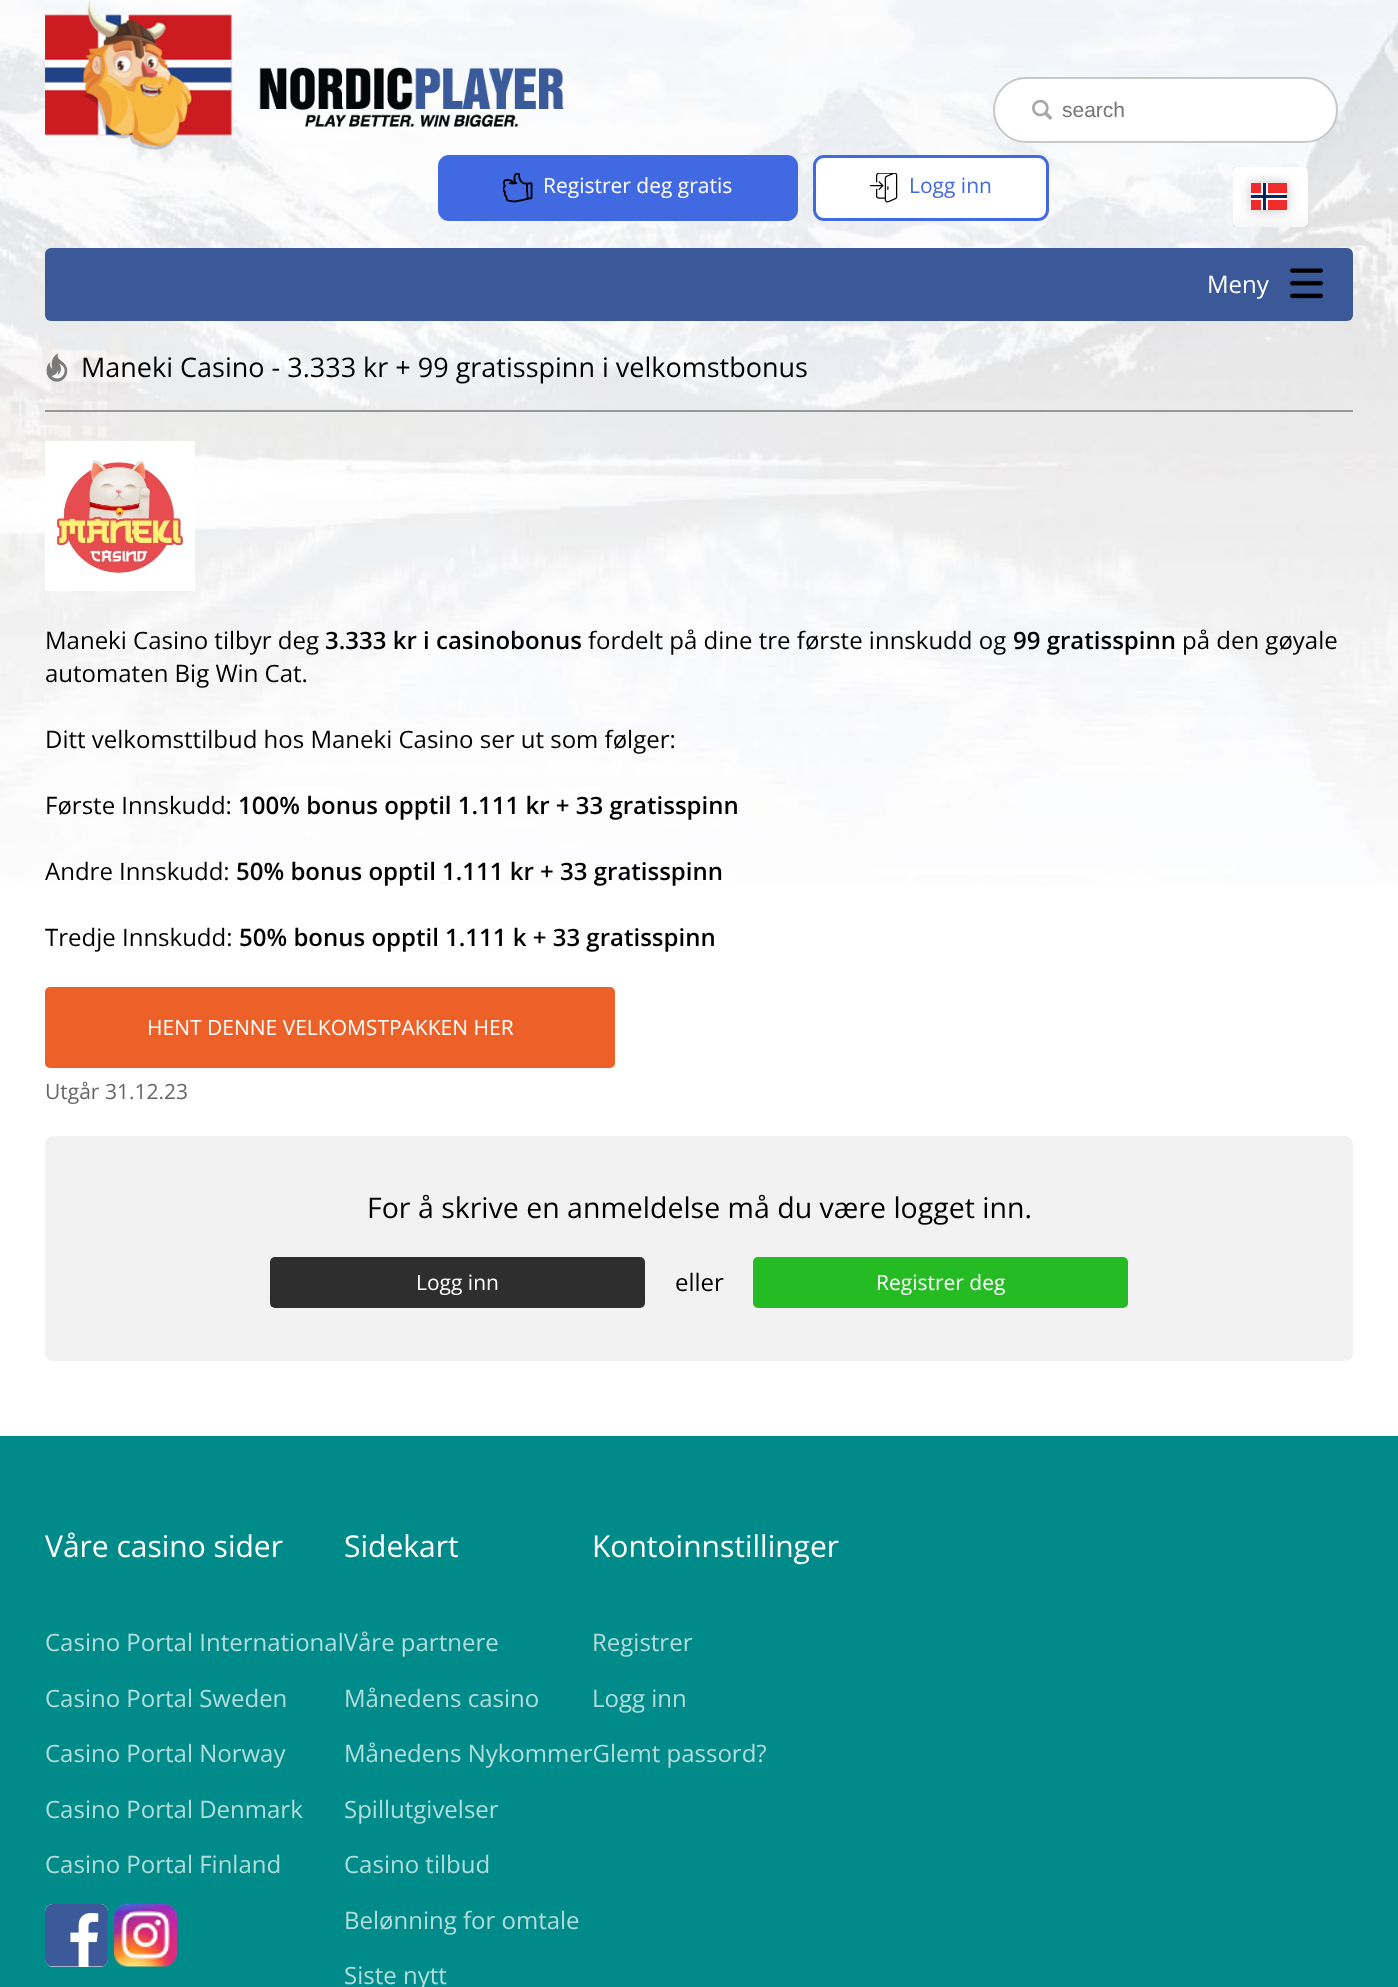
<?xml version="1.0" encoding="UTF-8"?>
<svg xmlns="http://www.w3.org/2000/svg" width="1398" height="1987">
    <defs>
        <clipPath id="clip1"><rect x="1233" y="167" width="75" height="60"/></clipPath>
        <filter id="blur1" x="-50%" y="-200%" width="200%" height="500%"><feGaussianBlur stdDeviation="15"/></filter>
        <filter id="blur2" x="-50%" y="-200%" width="200%" height="500%"><feGaussianBlur stdDeviation="6"/></filter>
    </defs>
    <rect width="100%" height="100%" fill="#FFFFFF"/>
    <image x="0" y="0" width="1398" height="885" href="img_01.png"/>
    <image x="45" y="1" width="519" height="149" href="img_02.png"/>
    <rect x="994" y="78" width="343" height="64" rx="32" fill="#FFFFFF" stroke="#C8C8C8" stroke-width="2"/>
    <image x="1032" y="99" width="21" height="21" href="img_03.png"/>
    <text x="1062" y="117" font-family="Liberation Sans" font-size="21" fill="#757575">search</text>
    <rect x="439.5" y="156.5" width="357" height="63" rx="9.5" fill="#4169E1" stroke="#4169E1" stroke-width="3"/>
    <image x="503" y="173" width="30" height="30" href="img_04.png"/>
    <text x="543" y="193" font-family="Open Sans" font-size="21" fill="#FFFFFF">Registrer deg gratis</text>
    <rect x="814.5" y="156.5" width="233" height="63" rx="9.5" fill="#FFFFFF" stroke="#4169E1" stroke-width="3"/>
    <image x="869" y="173" width="29" height="30" href="img_05.png"/>
    <text x="909" y="193" font-family="Open Sans" font-size="21" fill="#4169E1">Logg inn</text>
    <g clip-path="url(#clip1)">
        <rect x="1233" y="167" width="75" height="60" rx="5" fill="#000000" fill-opacity="0.13" filter="url(#blur1)"/>
    </g>
    <rect x="1233" y="167" width="75" height="60" rx="5" fill="#FFFFFF"/>
    <rect x="1251" y="183" width="36" height="27" fill="#000000" fill-opacity="0.24" filter="url(#blur2)"/>
    <rect x="1251" y="183" width="36" height="27" fill="#EF2B2D"/>
    <rect x="1261" y="183" width="7" height="27" fill="#FFFFFF"/>
    <rect x="1251" y="193" width="36" height="7" fill="#FFFFFF"/>
    <rect x="1263" y="183" width="3" height="27" fill="#002868"/>
    <rect x="1251" y="195" width="36" height="3" fill="#002868"/>
    <rect x="45" y="248" width="1308" height="73" rx="6" fill="#3B5998"/>
    <image x="1290" y="268" width="33" height="31" href="img_06.png"/>
    <rect x="45" y="410" width="1308" height="2" fill="#979797"/>
    <g clip-path="url(#clip1)">
        <rect x="1233" y="234" width="75" height="233" rx="5" fill="#000000" fill-opacity="0.13" filter="url(#blur1)"/>
    </g>
    <text x="1207" y="293" font-family="Open Sans" font-size="24" fill="#FFFFFF">Meny</text>
    <image x="46" y="353" width="22" height="29" href="img_07.png"/>
    <text x="81" y="377" font-family="Open Sans" font-size="27" fill="#000000">Maneki Casino - 3.333 kr + 99 gratisspinn i velkomstbonus</text>
    <rect x="45" y="441" width="150" height="150" fill="#FFFFFF"/>
    <image x="54" y="459" width="131" height="118" href="img_08.png"/>
    <text x="45" y="649" font-family="Open Sans" font-size="24" fill="#000000">Maneki Casino tilbyr deg</text>
    <text x="325" y="649" font-family="Open Sans" font-size="24" font-weight="600" fill="#000000">3.333 kr i casinobonus</text>
    <text x="588" y="649" font-family="Open Sans" font-size="24" fill="#000000">fordelt på dine tre første innskudd og</text>
    <text x="1013" y="649" font-family="Open Sans" font-size="24" font-weight="600" fill="#000000">99 gratisspinn</text>
    <text x="1182" y="649" font-family="Open Sans" font-size="24" fill="#000000">på den gøyale</text>
    <text x="45" y="682" font-family="Open Sans" font-size="24" fill="#000000">automaten Big Win Cat.</text>
    <text x="45" y="748" font-family="Open Sans" font-size="24" fill="#000000">Ditt velkomsttilbud hos Maneki Casino ser ut som følger:</text>
    <text x="45" y="814" font-family="Open Sans" font-size="24" fill="#000000">Første Innskudd:</text>
    <text x="238" y="814" font-family="Open Sans" font-size="24" font-weight="600" fill="#000000">100% bonus opptil 1.111 kr + 33 gratisspinn</text>
    <text x="45" y="880" font-family="Open Sans" font-size="24" fill="#000000">Andre Innskudd:</text>
    <text x="236" y="880" font-family="Open Sans" font-size="24" font-weight="600" fill="#000000">50% bonus opptil 1.111 kr + 33 gratisspinn</text>
    <text x="45" y="946" font-family="Open Sans" font-size="24" fill="#000000">Tredje Innskudd:</text>
    <text x="239" y="946" font-family="Open Sans" font-size="24" font-weight="600" fill="#000000">50% bonus opptil 1.111 k + 33 gratisspinn</text>
    <rect x="45" y="987" width="570" height="81" rx="5" fill="#ED6128"/>
    <text x="147" y="1035" font-family="Open Sans" font-size="21" fill="#FFFFFF">HENT DENNE VELKOMSTPAKKEN HER</text>
    <text x="45" y="1099" font-family="Open Sans" font-size="21" fill="#676767">Utgår 31.12.23</text>
    <rect x="45" y="1136" width="1308" height="225" rx="8" fill="#F2F2F2"/>
    <text x="367" y="1218" font-family="Open Sans" font-size="28.5" fill="#000000">For å skrive en anmeldelse må du være logget inn.</text>
    <rect x="270" y="1257" width="375" height="51" rx="5" fill="#2E2E2E"/>
    <text x="416" y="1290" font-family="Open Sans" font-size="21" fill="#FFFFFF">Logg inn</text>
    <text x="675" y="1291" font-family="Open Sans" font-size="24" fill="#000000">eller</text>
    <rect x="753" y="1257" width="375" height="51" rx="5" fill="#25BC23"/>
    <text x="876" y="1290" font-family="Open Sans" font-size="21" fill="#FFFFFF">Registrer deg</text>
    <rect x="0" y="1436" width="1398" height="551" fill="#008B8B"/>
    <text x="45" y="1557" font-family="Open Sans" font-size="30" fill="#FFFFFF">Våre casino sider</text>
    <text x="45" y="1651" font-family="Open Sans" font-size="24" fill="#B3DCDC">Casino Portal InternationalVåre partnere</text>
    <text x="45" y="1707" font-family="Open Sans" font-size="24" fill="#B3DCDC">Casino Portal Sweden</text>
    <text x="45" y="1762" font-family="Open Sans" font-size="24" fill="#B3DCDC">Casino Portal Norway</text>
    <text x="45" y="1818" font-family="Open Sans" font-size="24" fill="#B3DCDC">Casino Portal Denmark</text>
    <text x="45" y="1873" font-family="Open Sans" font-size="24" fill="#B3DCDC">Casino Portal Finland</text>
    <rect x="45" y="1904" width="63" height="63" rx="8" fill="#FFFFFF"/>
    <image x="114" y="1903" width="63" height="64" href="img_09.png"/>
    <image x="45" y="1904" width="63" height="63" href="img_10.png"/>
    <text x="344" y="1557" font-family="Open Sans" font-size="30" fill="#FFFFFF">Sidekart</text>
    <text x="344" y="1707" font-family="Open Sans" font-size="24" fill="#B3DCDC">Månedens casino</text>
    <text x="344" y="1762" font-family="Open Sans" font-size="24" fill="#B3DCDC">Månedens NykommerGlemt passord?</text>
    <text x="344" y="1818" font-family="Open Sans" font-size="24" fill="#B3DCDC">Spillutgivelser</text>
    <text x="344" y="1873" font-family="Open Sans" font-size="24" fill="#B3DCDC">Casino tilbud</text>
    <text x="344" y="1929" font-family="Open Sans" font-size="24" fill="#B3DCDC">Belønning for omtale</text>
    <text x="344" y="1984" font-family="Open Sans" font-size="24" fill="#B3DCDC">Siste nytt</text>
    <text x="592" y="1557" font-family="Open Sans" font-size="30" fill="#FFFFFF">Kontoinnstillinger</text>
    <text x="592" y="1651" font-family="Open Sans" font-size="24" fill="#B3DCDC">Registrer</text>
    <text x="592" y="1707" font-family="Open Sans" font-size="24" fill="#B3DCDC">Logg inn</text>
</svg>
